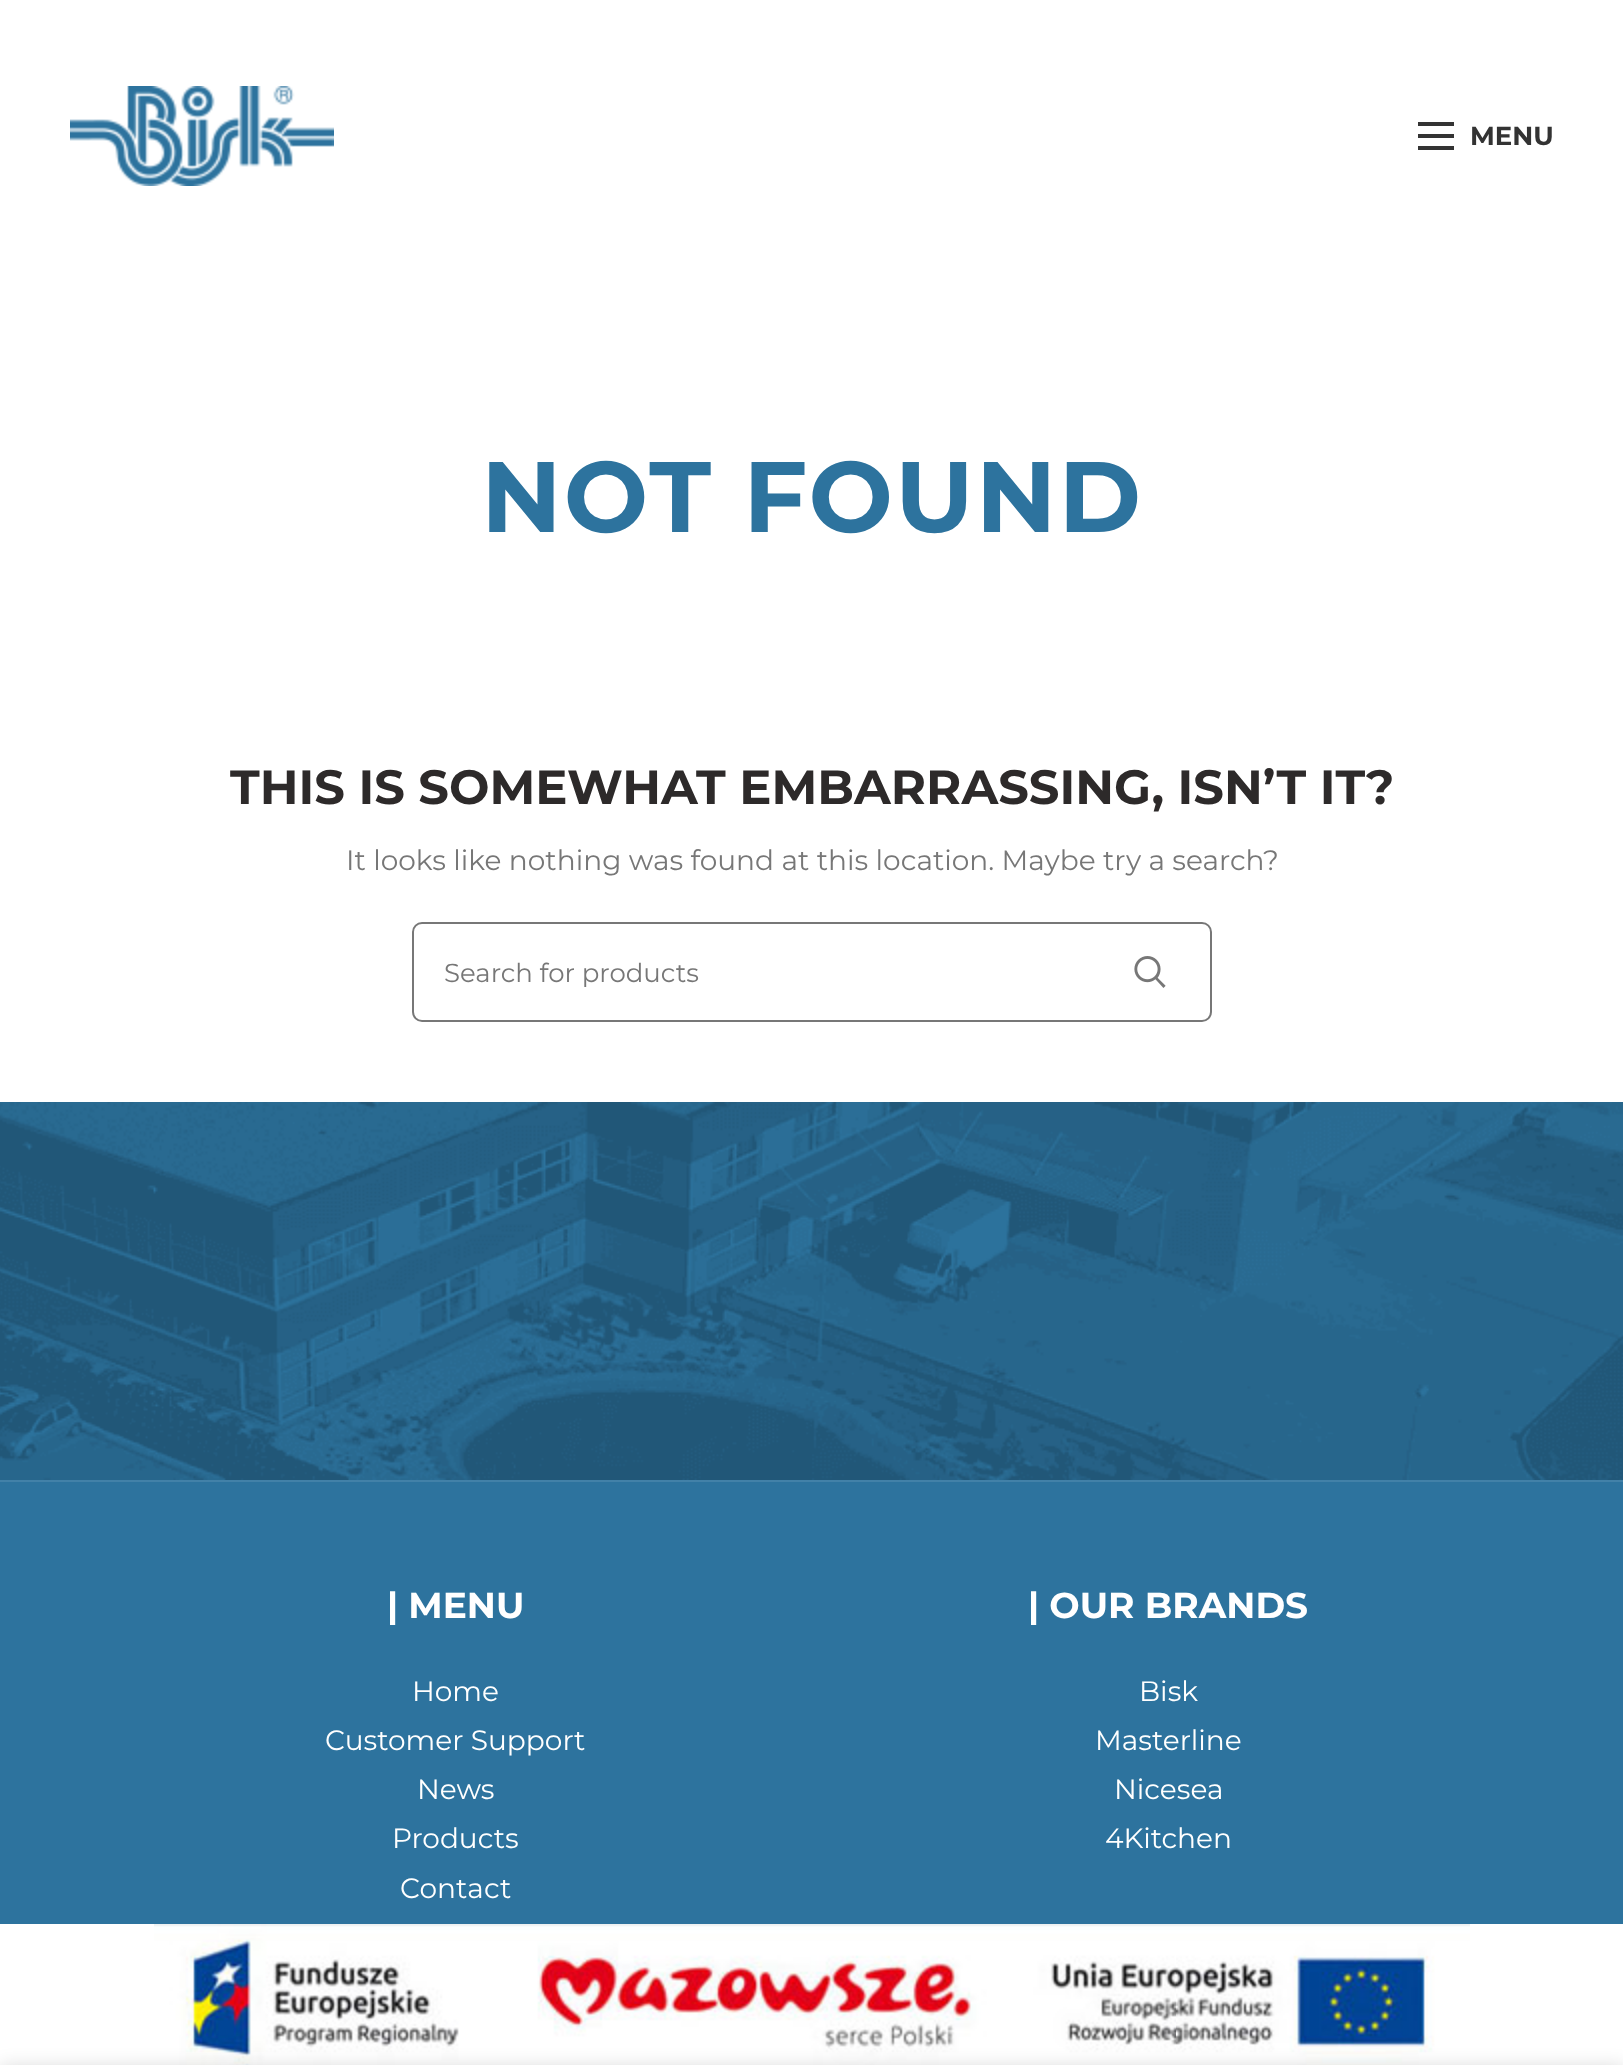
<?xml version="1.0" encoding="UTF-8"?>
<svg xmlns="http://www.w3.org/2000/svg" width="1623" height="2065">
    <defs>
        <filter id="blur1" x="-50%" y="-200%" width="200%" height="500%"><feGaussianBlur stdDeviation="9"/></filter>
    </defs>
    <rect width="100%" height="100%" fill="#FFFFFF"/>
    <image x="70" y="86" width="264" height="100" href="img_01.png"/>
    <rect x="1418" y="134" width="36" height="4" fill="#333333"/>
    <rect x="1418" y="122" width="36" height="4" fill="#333333"/>
    <rect x="1418" y="146" width="36" height="4" fill="#333333"/>
    <text x="1470" y="145" font-family="Montserrat" font-size="26" font-weight="700" fill="#333333">MENU</text>
    <text x="481" y="532" font-family="Montserrat" font-size="100" font-weight="700" letter-spacing="2" fill="#2D739E">NOT FOUND</text>
    <text x="230" y="804" font-family="Montserrat" font-size="48" font-weight="700" fill="#2D2A2A">THIS IS SOMEWHAT EMBARRASSING, ISN’T IT?</text>
    <text x="346" y="870" font-family="Montserrat" font-size="28" fill="#777777">It looks like nothing was found at this location. Maybe try a search?</text>
    <rect x="413" y="923" width="798" height="98" rx="9" fill="none" stroke="#777777" stroke-width="2"/>
    <text x="444" y="982" font-family="Montserrat" font-size="26" fill="#777777">Search for products</text>
    <image x="1134" y="956" width="32" height="32" href="img_02.png"/>
    <rect x="0" y="1102" width="1623" height="822" fill="#2D739E"/>
    <rect x="0" y="1480" width="1623" height="2" fill="#4281A8"/>
    <image x="0" y="1102" width="1623" height="378" href="img_03.png"/>
    <text x="387" y="1618" font-family="Montserrat" font-size="36" font-weight="700" fill="#FFFFFF">| MENU</text>
    <text x="412" y="1701" font-family="Montserrat" font-size="28" fill="#FFFFFF">Home</text>
    <text x="325" y="1750" font-family="Montserrat" font-size="28" fill="#FFFFFF">Customer Support</text>
    <text x="417" y="1799" font-family="Montserrat" font-size="28" fill="#FFFFFF">News</text>
    <text x="392" y="1848" font-family="Montserrat" font-size="28" fill="#FFFFFF">Products</text>
    <text x="400" y="1898" font-family="Montserrat" font-size="28" fill="#FFFFFF">Contact</text>
    <text x="1028" y="1618" font-family="Montserrat" font-size="36" font-weight="700" fill="#FFFFFF">| OUR BRANDS</text>
    <text x="1139" y="1701" font-family="Montserrat" font-size="28" fill="#FFFFFF">Bisk</text>
    <text x="1095" y="1750" font-family="Montserrat" font-size="28" fill="#FFFFFF">Masterline</text>
    <text x="1114" y="1799" font-family="Montserrat" font-size="28" fill="#FFFFFF">Nicesea</text>
    <text x="1105" y="1848" font-family="Montserrat" font-size="28" fill="#FFFFFF">4Kitchen</text>
    <image x="154" y="1924" width="1316" height="141" href="img_04.png"/>
    <rect x="0" y="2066" width="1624" height="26" fill="#000000" fill-opacity="0.14" filter="url(#blur1)"/>
</svg>
